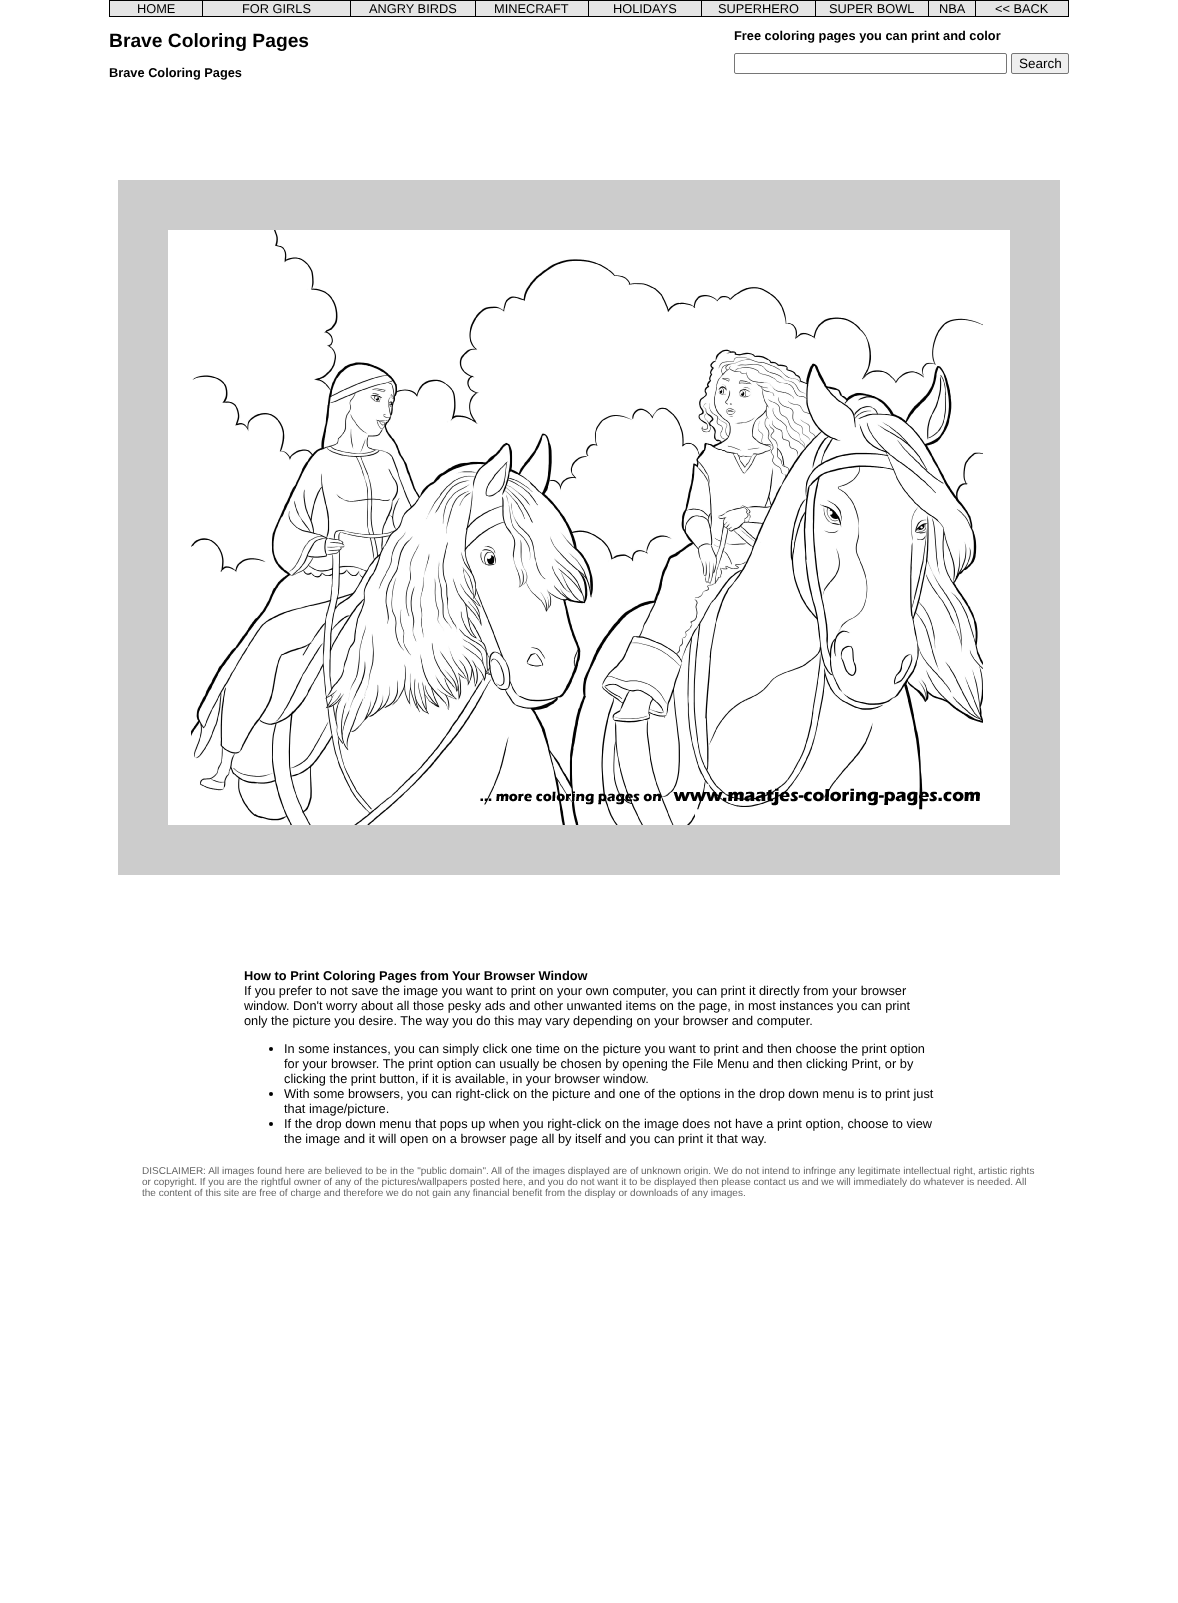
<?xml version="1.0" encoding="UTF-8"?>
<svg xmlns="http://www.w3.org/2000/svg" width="1178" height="1603">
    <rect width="100%" height="100%" fill="#FFFFFF"/>
    <rect x="109.5" y="0.5" width="959" height="16" fill="#E5E5E5" stroke="#000000"/>
    <rect x="202" y="1" width="1" height="15" fill="#000000"/>
    <text x="137" y="13" font-family="Liberation Sans" font-size="12.8" fill="#000000">HOME</text>
    <rect x="350" y="1" width="1" height="15" fill="#000000"/>
    <text x="242" y="13" font-family="Liberation Sans" font-size="12.8" fill="#000000">FOR GIRLS</text>
    <rect x="475" y="1" width="1" height="15" fill="#000000"/>
    <text x="369" y="13" font-family="Liberation Sans" font-size="12.8" fill="#000000">ANGRY BIRDS</text>
    <rect x="588" y="1" width="1" height="15" fill="#000000"/>
    <text x="494" y="13" font-family="Liberation Sans" font-size="12.8" fill="#000000">MINECRAFT</text>
    <rect x="701" y="1" width="1" height="15" fill="#000000"/>
    <text x="613" y="13" font-family="Liberation Sans" font-size="12.8" fill="#000000">HOLIDAYS</text>
    <rect x="815" y="1" width="1" height="15" fill="#000000"/>
    <text x="718" y="13" font-family="Liberation Sans" font-size="12.8" fill="#000000">SUPERHERO</text>
    <rect x="928" y="1" width="1" height="15" fill="#000000"/>
    <text x="829" y="13" font-family="Liberation Sans" font-size="12.8" fill="#000000">SUPER BOWL</text>
    <rect x="975" y="1" width="1" height="15" fill="#000000"/>
    <text x="939" y="13" font-family="Liberation Sans" font-size="12.8" fill="#000000">NBA</text>
    <text x="995" y="13" font-family="Liberation Sans" font-size="12.8" fill="#000000">&lt;&lt; BACK</text>
    <text x="109" y="47" font-family="Liberation Sans" font-size="19.25" font-weight="700" fill="#000000">Brave Coloring Pages</text>
    <text x="109" y="77" font-family="Liberation Sans" font-size="12.8" font-weight="700" fill="#000000">Brave Coloring Pages</text>
    <text x="734" y="40" font-family="Liberation Sans" font-size="12.8" font-weight="700" fill="#000000">Free coloring pages you can print and color</text>
    <rect x="734.5" y="53.5" width="272" height="20" rx="1.5" fill="none" stroke="#767676"/>
    <rect x="1011.5" y="53.5" width="57" height="20" rx="1.5" fill="#EFEFEF" stroke="#767676"/>
    <text x="1019" y="68" font-family="Liberation Sans" font-size="13.5" fill="#000000">Search</text>
    <rect x="118" y="180" width="942" height="695" fill="#CCCCCC"/>
    <image x="168" y="230" width="842" height="595" href="img_01.png"/>
    <text x="244" y="980" font-family="Liberation Sans" font-size="12.8" font-weight="700" fill="#000000">How to Print Coloring Pages from Your Browser Window</text>
    <text font-family="Liberation Sans" font-size="12.8" fill="#000000">
        <tspan x="244" y="995">If you prefer to not save the image you want to print on your own computer, you can print it directly from your browser</tspan>
        <tspan x="244" y="1010">window. Don't worry about all those pesky ads and other unwanted items on the page, in most instances you can print</tspan>
        <tspan x="244" y="1025">only the picture you desire. The way you do this may vary depending on your browser and computer.</tspan>
    </text>
    <circle cx="271" cy="1049" r="2" fill="#000000"/>
    <text font-family="Liberation Sans" font-size="12.8" fill="#000000">
        <tspan x="284" y="1053">In some instances, you can simply click one time on the picture you want to print and then choose the print option</tspan>
        <tspan x="284" y="1068">for your browser. The print option can usually be chosen by opening the File Menu and then clicking Print, or by</tspan>
        <tspan x="284" y="1083">clicking the print button, if it is available, in your browser window.</tspan>
    </text>
    <circle cx="271" cy="1094" r="2" fill="#000000"/>
    <text font-family="Liberation Sans" font-size="12.8" fill="#000000">
        <tspan x="284" y="1098">With some browsers, you can right-click on the picture and one of the options in the drop down menu is to print just</tspan>
        <tspan x="284" y="1113">that image/picture.</tspan>
    </text>
    <circle cx="271" cy="1124" r="2" fill="#000000"/>
    <text font-family="Liberation Sans" font-size="12.8" fill="#000000">
        <tspan x="284" y="1128">If the drop down menu that pops up when you right-click on the image does not have a print option, choose to view</tspan>
        <tspan x="284" y="1143">the image and it will open on a browser page all by itself and you can print it that way.</tspan>
    </text>
    <text font-family="Liberation Sans" font-size="10" fill="#666666">
        <tspan x="142" y="1174">DISCLAIMER: All images found here are believed to be in the "public domain". All of the images displayed are of unknown origin. We do not intend to infringe any legitimate intellectual right, artistic rights</tspan>
        <tspan x="142" y="1185">or copyright. If you are the rightful owner of any of the pictures/wallpapers posted here, and you do not want it to be displayed then please contact us and we will immediately do whatever is needed. All</tspan>
        <tspan x="142" y="1196">the content of this site are free of charge and therefore we do not gain any financial benefit from the display or downloads of any images.</tspan>
    </text>
</svg>
